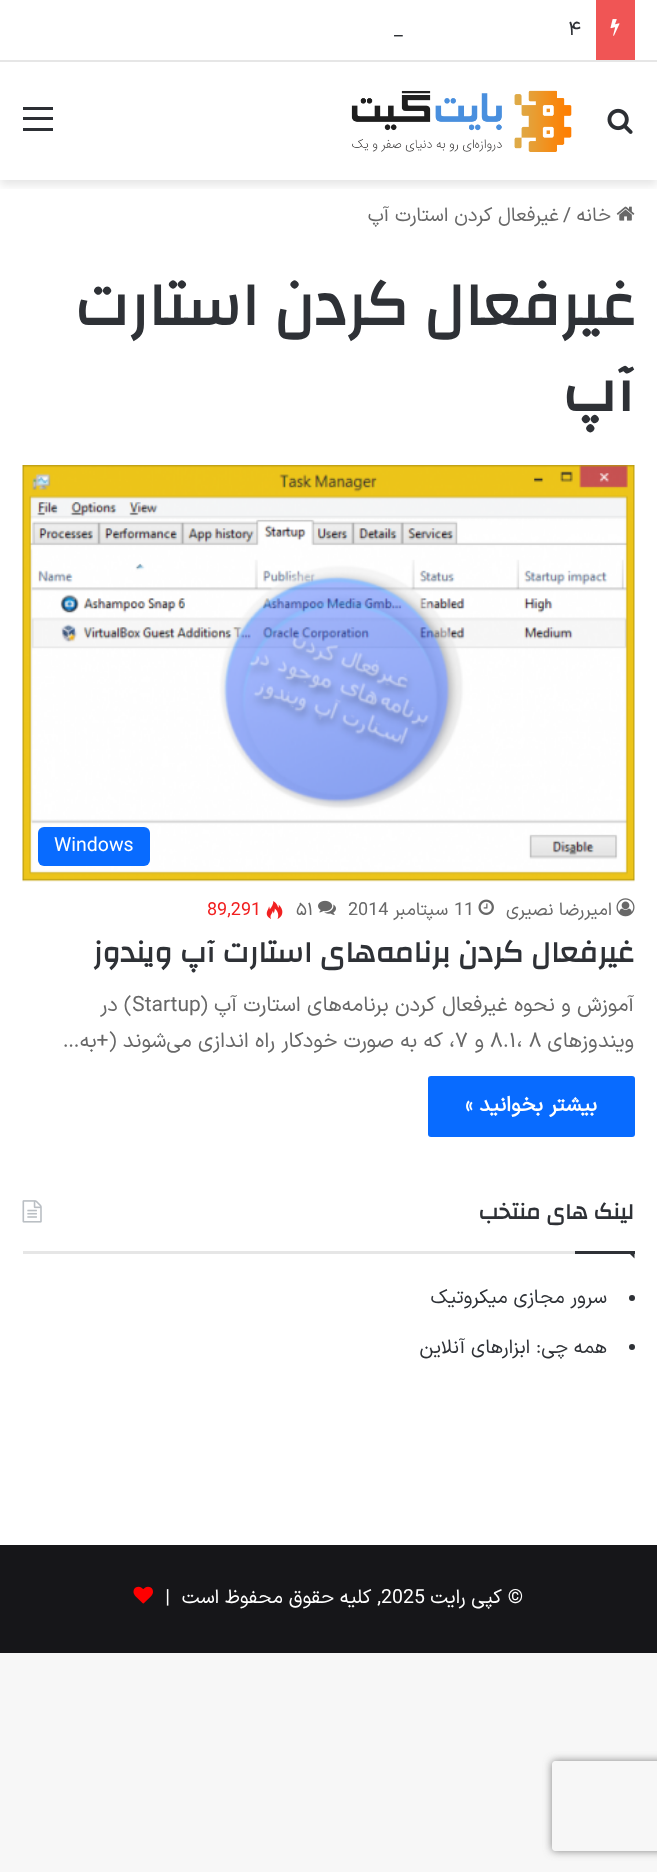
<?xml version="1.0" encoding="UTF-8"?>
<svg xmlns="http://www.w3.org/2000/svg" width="657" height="1872">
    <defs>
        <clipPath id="clip1"><rect x="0" y="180" width="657" height="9"/></clipPath>
        <filter id="blur1" x="-50%" y="-200%" width="200%" height="500%"><feGaussianBlur stdDeviation="5"/></filter>
        <clipPath id="clip2"><path d="M 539 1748 H 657 V 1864 H 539 Z M 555 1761 H 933 C 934.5 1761 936 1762.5 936 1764 V 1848 C 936 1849.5 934.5 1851 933 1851 H 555 C 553.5 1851 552 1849.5 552 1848 V 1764 C 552 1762.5 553.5 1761 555 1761 Z" clip-rule="evenodd"/></clipPath>
        <filter id="blur2" x="-50%" y="-200%" width="200%" height="500%"><feGaussianBlur stdDeviation="4"/></filter>
    </defs>
    <rect width="100%" height="100%" fill="#F7F7F7"/>
    <rect x="0" y="62" width="657" height="1483" fill="#FFFFFF"/>
    <g clip-path="url(#clip1)">
        <rect x="0" y="66" width="657" height="119" fill="#000000" fill-opacity="0.1" filter="url(#blur1)"/>
    </g>
    <rect x="0" y="0" width="657" height="60" fill="#FFFFFF"/>
    <rect x="0" y="60" width="657" height="2" fill="#E6E6E6"/>
    <rect x="596" y="0" width="39" height="60" fill="#F05555"/>
    <image x="610" y="19" width="10" height="17" href="img_01.png"/>
    <text x="568" y="35" font-family="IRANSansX" font-size="19.5" fill="#2E3136">۴</text>
    <text x="394" y="35" font-family="IRANSansX" font-size="19.5" fill="#2E3136">_</text>
    <image x="607" y="108" width="26" height="26" href="img_02.png"/>
    <image x="351" y="90" width="221" height="62" href="img_03.png"/>
    <rect x="23" y="117" width="30" height="3" fill="#2C2F34"/>
    <rect x="23" y="107" width="30" height="3" fill="#2C2F34"/>
    <rect x="23" y="128" width="30" height="3" fill="#2C2F34"/>
    <image x="616" y="206" width="19" height="15" href="img_04.png"/>
    <text x="611" y="221" font-family="IRANSansX" font-size="19.5" direction="rtl" fill="#686868">خانه</text>
    <text x="563" y="221" font-family="IRANSansX" font-size="19.5" fill="#686868">/</text>
    <text x="559" y="221" font-family="IRANSansX" font-size="19.5" direction="rtl" fill="#686868">غیرفعال کردن استارت آپ</text>
    <text x="635" y="325" font-family="Changa" font-size="61.5" font-weight="700" direction="rtl" fill="#2E3136">غیرفعال کردن استارت</text>
    <text x="634" y="411" font-family="Changa" font-size="61.5" font-weight="700" direction="rtl" fill="#2E3136">آپ</text>
    <image x="22" y="465" width="613" height="417" href="img_05.png"/>
    <rect x="38" y="827" width="112" height="39" rx="6" fill="#086BFF"/>
    <text x="54" y="851" font-family="IRANSansX" font-size="19.5" fill="#FFFFFF">Windows</text>
    <image x="616" y="898" width="19" height="19" href="img_06.png"/>
    <text x="612" y="915" font-family="IRANSansX" font-size="18" direction="rtl" fill="#686868">امیررضا نصیری</text>
    <image x="478" y="899" width="16" height="16" href="img_07.png"/>
    <text x="454" y="915" font-family="IRANSansX" font-size="18" fill="#686868">11</text>
    <text x="448" y="915" font-family="IRANSansX" font-size="18" direction="rtl" fill="#686868">سپتامبر</text>
    <text x="348" y="915" font-family="IRANSansX" font-size="18" fill="#686868">2014</text>
    <image x="318" y="900" width="18" height="15" href="img_08.png"/>
    <text x="296" y="915" font-family="IRANSansX" font-size="18" fill="#686868">۵۱</text>
    <image x="266" y="901" width="17" height="18" href="img_09.png"/>
    <text x="207" y="915" font-family="IRANSansX" font-size="18" fill="#F12020">89,291</text>
    <text x="634" y="962" font-family="Changa" font-size="30" font-weight="700" direction="rtl" fill="#2E3136">غیرفعال کردن برنامه‌های استارت آپ ویندوز</text>
    <text x="634" y="1011" font-family="IRANSansX" font-size="21" direction="rtl" fill="#686868">آموزش و نحوه غیرفعال کردن برنامه‌های استارت آپ (</text>
    <text x="132" y="1011" font-family="IRANSansX" font-size="21" fill="#686868">Startup</text>
    <text x="132" y="1011" font-family="IRANSansX" font-size="21" direction="rtl" fill="#686868">) در</text>
    <text x="634" y="1047" font-family="IRANSansX" font-size="21" direction="rtl" fill="#686868">ویندوزهای</text>
    <text x="490" y="1047" font-family="IRANSansX" font-size="21" fill="#686868">۸.۱، ۸</text>
    <text x="484" y="1047" font-family="IRANSansX" font-size="21" direction="rtl" fill="#686868">و</text>
    <text x="455" y="1047" font-family="IRANSansX" font-size="21" fill="#686868">۷</text>
    <text x="455" y="1047" font-family="IRANSansX" font-size="21" direction="rtl" fill="#686868">، که به صورت خودکار راه اندازی می‌شوند (+به…</text>
    <rect x="428" y="1076" width="207" height="61" rx="3" fill="#086BFF"/>
    <text x="597" y="1111" font-family="IRANSansX" font-size="21" font-weight="700" direction="rtl" fill="#FFFFFF">بیشتر بخوانید »</text>
    <rect x="23" y="1251" width="552" height="3" fill="#E6E6E6"/>
    <text x="634" y="1219" font-family="Changa" font-size="22.5" font-weight="700" direction="rtl" fill="#2E3136">لینک های منتخب</text>
    <image x="22" y="1200" width="20" height="23" href="img_10.png"/>
    <path d="M 627 1251 H 634.5 V 1258.5 Z" fill="#2E3136"/>
    <rect x="575" y="1251" width="60" height="3" fill="#2E3136"/>
    <circle cx="632" cy="1298" r="3" fill="#2E3136"/>
    <text x="607" y="1303" font-family="IRANSansX" font-size="19.5" direction="rtl" fill="#2E3136">سرور مجازی میکروتیک</text>
    <circle cx="632" cy="1347" r="3" fill="#2E3136"/>
    <text x="607" y="1353" font-family="IRANSansX" font-size="19.5" direction="rtl" fill="#2E3136">همه چی: ابزارهای آنلاین</text>
    <rect x="0" y="1545" width="657" height="108" fill="#161619"/>
    <text x="523" y="1603" font-family="IRANSansX" font-size="19.5" direction="rtl" fill="#FFFFFF">© کپی رایت</text>
    <text x="381" y="1603" font-family="IRANSansX" font-size="19.5" fill="#FFFFFF">2025</text>
    <text x="381" y="1603" font-family="IRANSansX" font-size="19.5" direction="rtl" fill="#FFFFFF" xml:space="preserve">, کلیه حقوق محفوظ است  |</text>
    <image x="133" y="1586" width="20" height="18" href="img_11.png"/>
    <g clip-path="url(#clip2)">
        <rect x="552" y="1761" width="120" height="90" rx="3" fill="#808080" filter="url(#blur2)"/>
    </g>
</svg>
